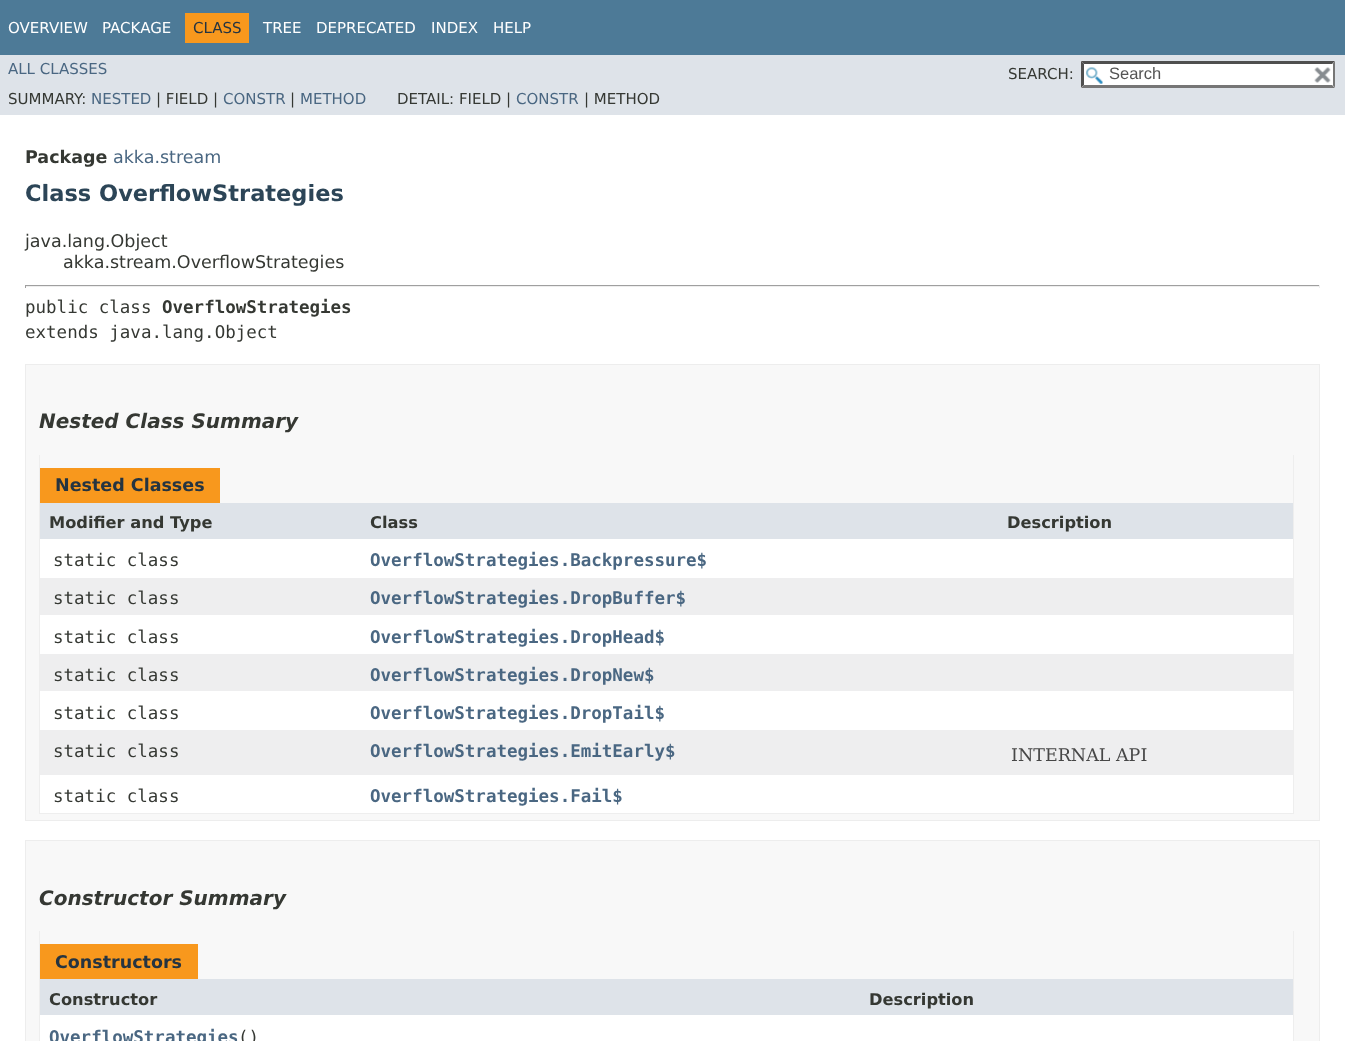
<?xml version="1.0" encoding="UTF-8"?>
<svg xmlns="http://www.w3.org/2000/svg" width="1345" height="1041">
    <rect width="100%" height="100%" fill="#FFFFFF"/>
    <rect x="0" y="0" width="1345" height="55" fill="#4D7A97"/>
    <text x="8" y="33" font-family="DejaVu Sans" font-size="15" fill="#FFFFFF">OVERVIEW</text>
    <text x="102" y="33" font-family="DejaVu Sans" font-size="15" fill="#FFFFFF">PACKAGE</text>
    <rect x="185" y="13" width="64" height="30" fill="#F8981D"/>
    <text x="193" y="33" font-family="DejaVu Sans" font-size="15" fill="#253441">CLASS</text>
    <text x="263" y="33" font-family="DejaVu Sans" font-size="15" fill="#FFFFFF">TREE</text>
    <text x="316" y="33" font-family="DejaVu Sans" font-size="15" fill="#FFFFFF">DEPRECATED</text>
    <text x="431" y="33" font-family="DejaVu Sans" font-size="15" fill="#FFFFFF">INDEX</text>
    <text x="493" y="33" font-family="DejaVu Sans" font-size="15" fill="#FFFFFF">HELP</text>
    <rect x="0" y="55" width="1345" height="60" fill="#DEE3E9"/>
    <text x="8" y="74" font-family="DejaVu Sans" font-size="15" fill="#4A6782">ALL CLASSES</text>
    <text x="1008" y="79" font-family="DejaVu Sans" font-size="15" fill="#353833">SEARCH:</text>
    <rect x="1081" y="61" width="254" height="27" fill="#FFFFFF"/>
    <image x="1086" y="67" width="17" height="17" href="img_01.png"/>
    <path d="M 1081 61 H 1335 L 1332 64 H 1084 Z" fill="#4F4F4F"/>
    <path d="M 1335 61 V 87.5 L 1332.5 85 V 64 Z" fill="#767676"/>
    <path d="M 1335 88 H 1081 L 1084 85 H 1332 Z" fill="#767676"/>
    <path d="M 1081 87.5 V 61 L 1084 64 V 85 Z" fill="#4F4F4F"/>
    <text x="1109" y="79" font-family="Liberation Sans" font-size="16.5" fill="#545454">Search</text>
    <rect x="1332" y="64" width="1" height="21" fill="#FFFFFF"/>
    <image x="1314" y="67" width="17" height="16" href="img_02.png"/>
    <text x="8" y="104" font-family="DejaVu Sans" font-size="15" fill="#353833">SUMMARY:</text>
    <text x="91" y="104" font-family="DejaVu Sans" font-size="15" fill="#4A6782">NESTED</text>
    <text x="156" y="104" font-family="DejaVu Sans" font-size="15" fill="#353833">| FIELD |</text>
    <text x="223" y="104" font-family="DejaVu Sans" font-size="15" fill="#4A6782">CONSTR</text>
    <text x="290" y="104" font-family="DejaVu Sans" font-size="15" fill="#353833">|</text>
    <text x="300" y="104" font-family="DejaVu Sans" font-size="15" fill="#4A6782">METHOD</text>
    <text x="397" y="104" font-family="DejaVu Sans" font-size="15" fill="#353833">DETAIL: FIELD |</text>
    <text x="516" y="104" font-family="DejaVu Sans" font-size="15" fill="#4A6782">CONSTR</text>
    <text x="584" y="104" font-family="DejaVu Sans" font-size="15" fill="#353833">| METHOD</text>
    <text x="25" y="163" font-family="DejaVu Sans" font-size="17.5" font-weight="700" fill="#353833">Package</text>
    <text x="113" y="163" font-family="DejaVu Sans" font-size="17.5" fill="#4A6782">akka.stream</text>
    <text x="25" y="201" font-family="DejaVu Sans" font-size="22.5" font-weight="700" fill="#2C4557">Class OverflowStrategies</text>
    <text x="25" y="247" font-family="DejaVu Sans" font-size="17.5" fill="#353833">java.lang.Object</text>
    <text x="63" y="268" font-family="DejaVu Sans" font-size="17.5" fill="#353833">akka.stream.OverflowStrategies</text>
    <rect x="25" y="285" width="1295" height="1" fill="#9F9F9F"/>
    <rect x="1319" y="285" width="1" height="3" fill="#EEEEEE"/>
    <rect x="25" y="286" width="1295" height="1" fill="#EEEEEE"/>
    <rect x="25" y="285" width="1" height="3" fill="#9F9F9F"/>
    <text x="25" y="313" font-family="DejaVu Sans Mono" font-size="17.5" fill="#353833">public class</text>
    <text x="162" y="313" font-family="DejaVu Sans Mono" font-size="17.5" font-weight="700" fill="#353833">OverflowStrategies</text>
    <text x="25" y="338" font-family="DejaVu Sans Mono" font-size="17.5" fill="#353833">extends java.lang.Object</text>
    <rect x="25.5" y="364.5" width="1294" height="456" fill="#F8F8F8" stroke="#EDEDED"/>
    <text x="39" y="428" font-family="DejaVu Sans" font-size="20" font-weight="700" font-style="italic" fill="#353833">Nested Class Summary</text>
    <rect x="1293" y="455" width="1" height="359" fill="#EEEEEE"/>
    <rect x="39" y="813" width="1255" height="1" fill="#EEEEEE"/>
    <rect x="39" y="455" width="1" height="359" fill="#EEEEEE"/>
    <rect x="40" y="468" width="180" height="35" fill="#F8981D"/>
    <text x="55" y="491" font-family="DejaVu Sans" font-size="17.5" font-weight="700" fill="#253441">Nested Classes</text>
    <rect x="40" y="503" width="1253" height="36" fill="#DEE3E9"/>
    <text x="49" y="528" font-family="DejaVu Sans" font-size="16.25" font-weight="700" fill="#353833">Modifier and Type</text>
    <text x="370" y="528" font-family="DejaVu Sans" font-size="16.25" font-weight="700" fill="#353833">Class</text>
    <text x="1007" y="528" font-family="DejaVu Sans" font-size="16.25" font-weight="700" fill="#353833">Description</text>
    <rect x="40" y="539" width="1253" height="39" fill="#FFFFFF"/>
    <text x="53" y="566" font-family="DejaVu Sans Mono" font-size="17.5" fill="#353833">static class</text>
    <text x="370" y="566" font-family="DejaVu Sans Mono" font-size="17.5" font-weight="700" fill="#4A6782">OverflowStrategies.Backpressure$</text>
    <rect x="40" y="578" width="1253" height="37" fill="#EEEEEF"/>
    <text x="53" y="604" font-family="DejaVu Sans Mono" font-size="17.5" fill="#353833">static class</text>
    <text x="370" y="604" font-family="DejaVu Sans Mono" font-size="17.5" font-weight="700" fill="#4A6782">OverflowStrategies.DropBuffer$</text>
    <rect x="40" y="615" width="1253" height="39" fill="#FFFFFF"/>
    <text x="53" y="643" font-family="DejaVu Sans Mono" font-size="17.5" fill="#353833">static class</text>
    <text x="370" y="643" font-family="DejaVu Sans Mono" font-size="17.5" font-weight="700" fill="#4A6782">OverflowStrategies.DropHead$</text>
    <rect x="40" y="654" width="1253" height="37" fill="#EEEEEF"/>
    <text x="53" y="681" font-family="DejaVu Sans Mono" font-size="17.5" fill="#353833">static class</text>
    <text x="370" y="681" font-family="DejaVu Sans Mono" font-size="17.5" font-weight="700" fill="#4A6782">OverflowStrategies.DropNew$</text>
    <rect x="40" y="691" width="1253" height="39" fill="#FFFFFF"/>
    <text x="53" y="719" font-family="DejaVu Sans Mono" font-size="17.5" fill="#353833">static class</text>
    <text x="370" y="719" font-family="DejaVu Sans Mono" font-size="17.5" font-weight="700" fill="#4A6782">OverflowStrategies.DropTail$</text>
    <rect x="40" y="730" width="1253" height="45" fill="#EEEEEF"/>
    <text x="53" y="757" font-family="DejaVu Sans Mono" font-size="17.5" fill="#353833">static class</text>
    <text x="370" y="757" font-family="DejaVu Sans Mono" font-size="17.5" font-weight="700" fill="#4A6782">OverflowStrategies.EmitEarly$</text>
    <text x="1011" y="761" font-family="DejaVu Serif" font-size="17.5" fill="#474747">INTERNAL API</text>
    <rect x="40" y="775" width="1253" height="38" fill="#FFFFFF"/>
    <text x="53" y="802" font-family="DejaVu Sans Mono" font-size="17.5" fill="#353833">static class</text>
    <text x="370" y="802" font-family="DejaVu Sans Mono" font-size="17.5" font-weight="700" fill="#4A6782">OverflowStrategies.Fail$</text>
    <rect x="25.5" y="840.5" width="1294" height="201" fill="#F8F8F8" stroke="#EDEDED"/>
    <text x="39" y="905" font-family="DejaVu Sans" font-size="20" font-weight="700" font-style="italic" fill="#353833">Constructor Summary</text>
    <rect x="1293" y="931" width="1" height="110" fill="#EEEEEE"/>
    <rect x="39" y="931" width="1" height="110" fill="#EEEEEE"/>
    <rect x="40" y="944" width="158" height="35" fill="#F8981D"/>
    <text x="55" y="968" font-family="DejaVu Sans" font-size="17.5" font-weight="700" fill="#253441">Constructors</text>
    <rect x="40" y="979" width="1253" height="36" fill="#DEE3E9"/>
    <text x="49" y="1005" font-family="DejaVu Sans" font-size="16.25" font-weight="700" fill="#353833">Constructor</text>
    <text x="869" y="1005" font-family="DejaVu Sans" font-size="16.25" font-weight="700" fill="#353833">Description</text>
    <rect x="40" y="1015" width="1253" height="26" fill="#FFFFFF"/>
    <text x="49" y="1043" font-family="DejaVu Sans Mono" font-size="17.5" font-weight="700" fill="#4A6782">OverflowStrategies</text>
    <text x="238" y="1043" font-family="DejaVu Sans Mono" font-size="17.5" fill="#353833">()</text>
</svg>
